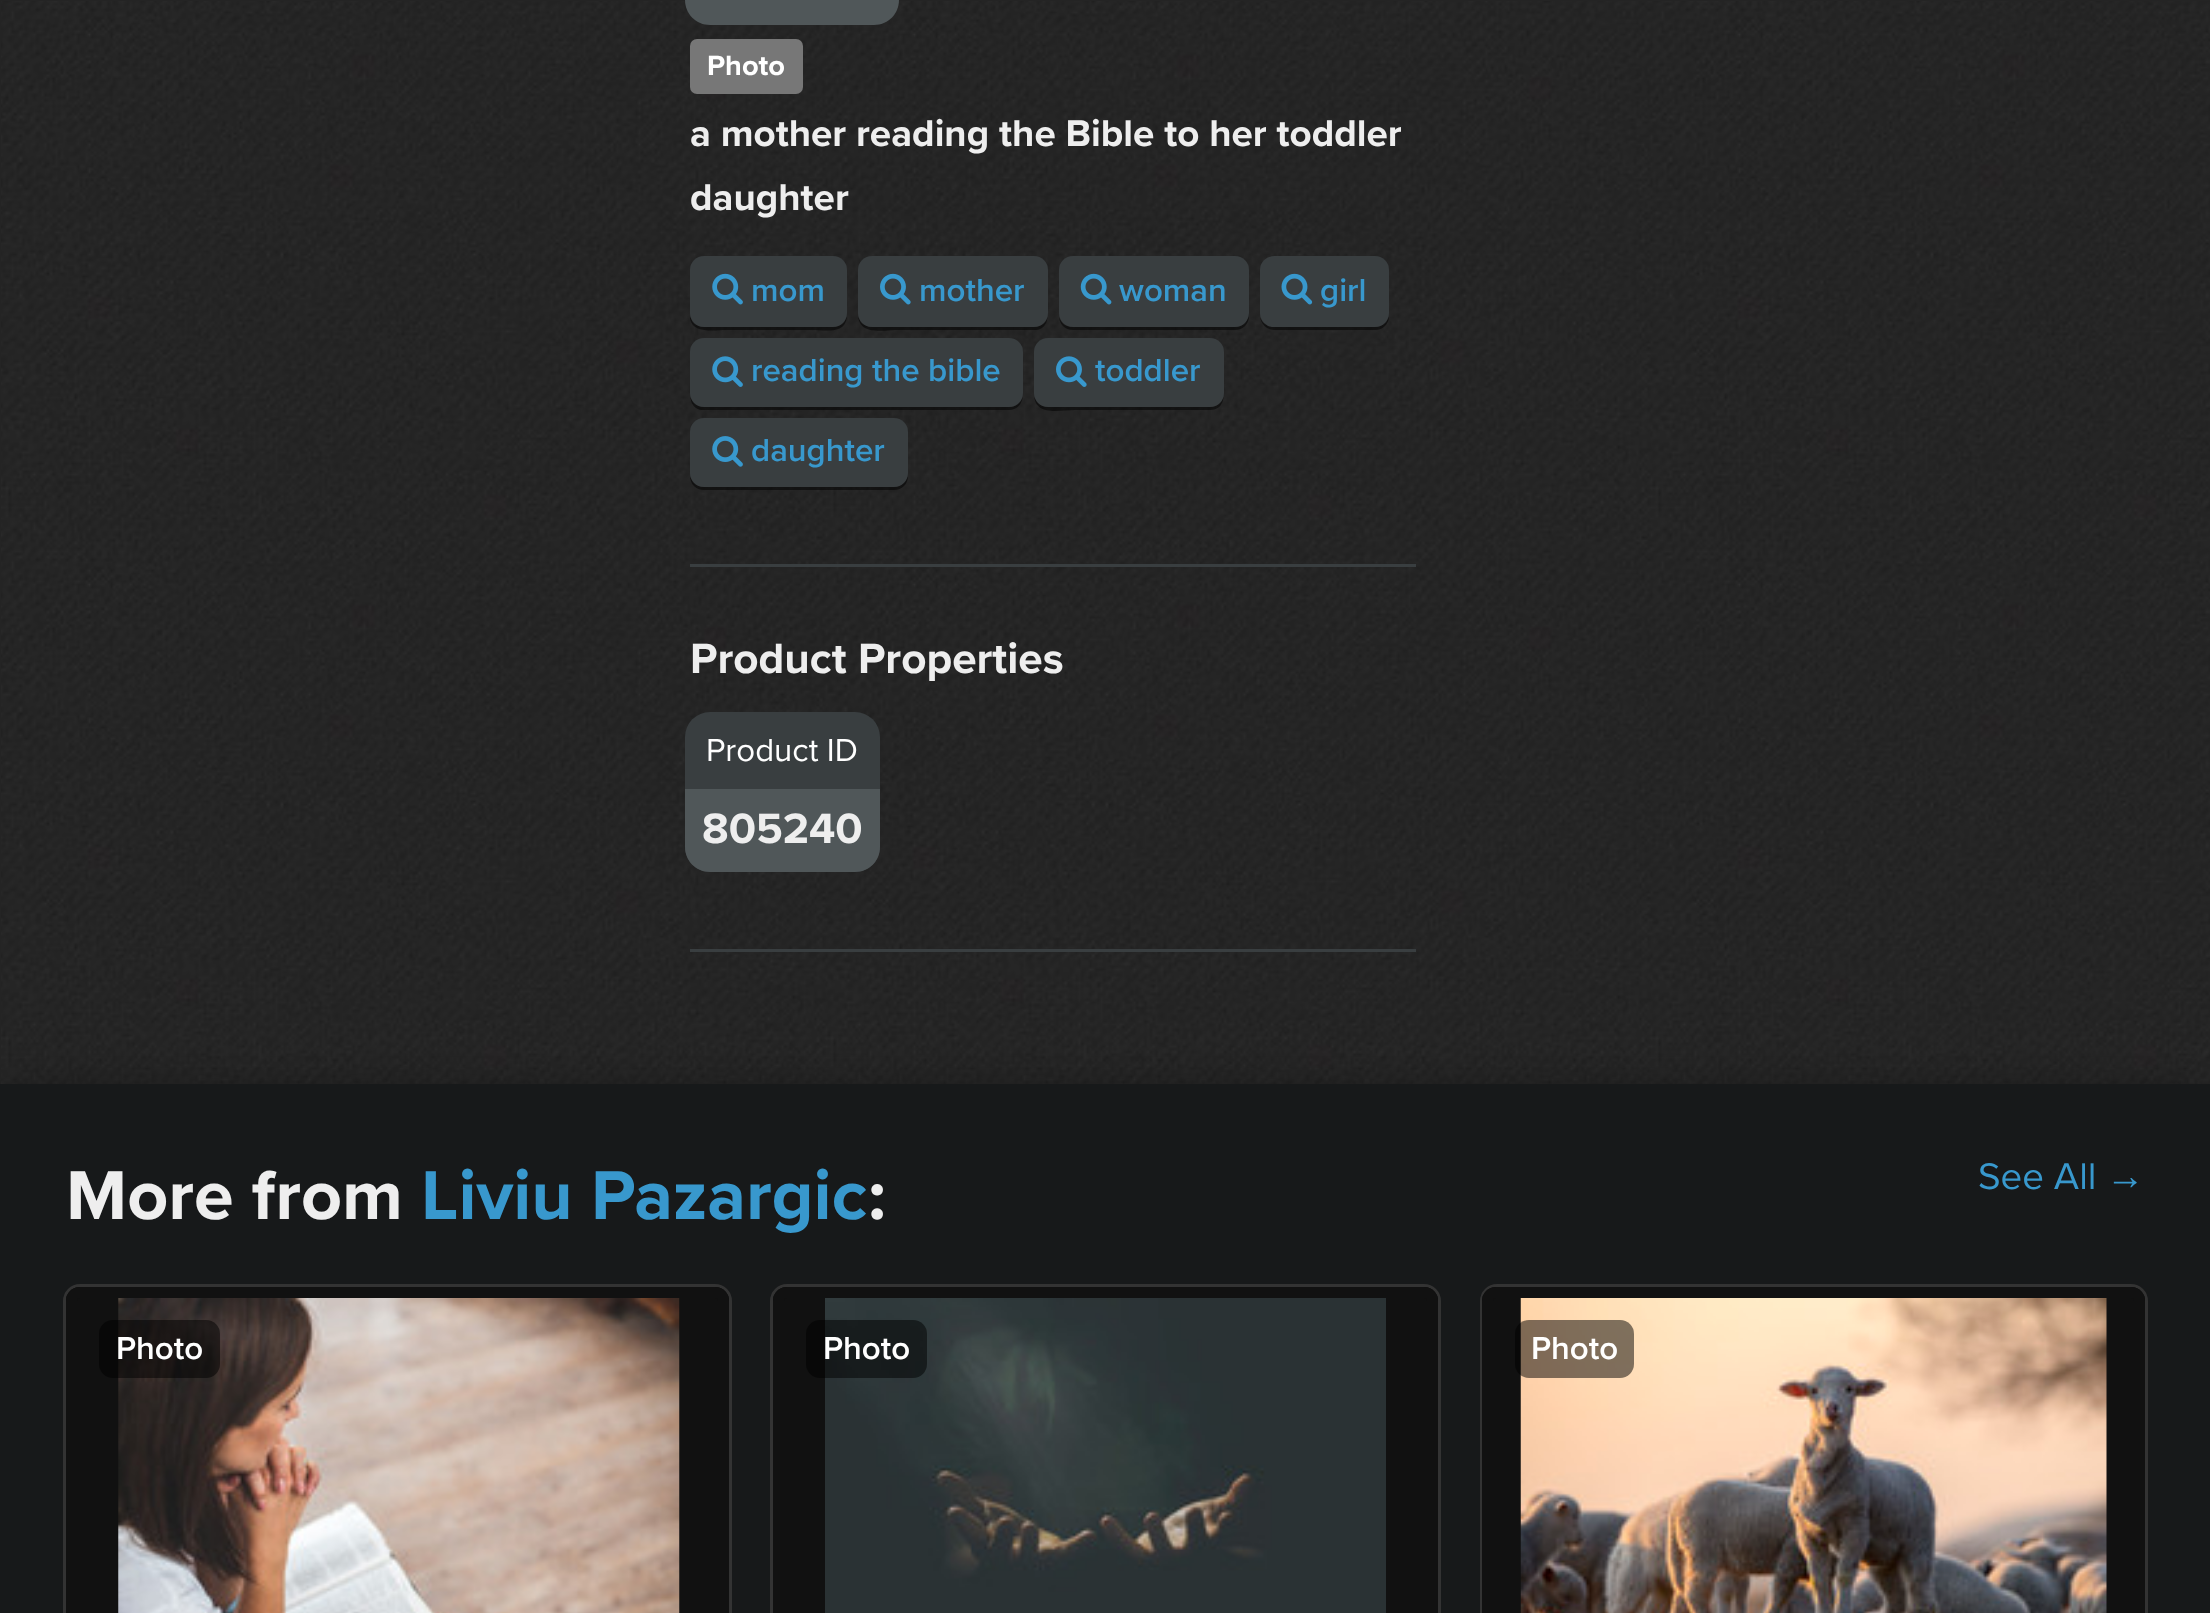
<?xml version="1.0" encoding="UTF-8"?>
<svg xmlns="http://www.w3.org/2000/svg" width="2210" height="1613">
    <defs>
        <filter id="blur1" x="-50%" y="-200%" width="200%" height="500%"><feGaussianBlur stdDeviation="22"/></filter>
    </defs>
    <rect width="100%" height="100%" fill="#242424"/>
    <image x="1" y="1" width="2209" height="1083" href="img_01.png"/>
    <path d="M 685 -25 H 899 V 0 C 899 14 888 25 874 25 H 710 C 696 25 685 14 685 0 Z" fill="#505759"/>
    <rect x="690" y="564" width="726" height="3" fill="#393E40"/>
    <rect x="690" y="39" width="113" height="55" rx="7" fill="#777777"/>
    <text x="707" y="75" font-family="Proxima Nova" font-size="29" font-weight="700" fill="#FFFFFF">Photo</text>
    <text font-family="Proxima Nova" font-size="38.5" font-weight="700" fill="#EEEEEE">
        <tspan x="690" y="146">a mother reading the Bible to her toddler</tspan>
        <tspan x="690" y="210">daughter</tspan>
    </text>
    <path d="M 690 270 V 319 C 693 334 715 330 726 330 H 812 C 827 330 847 335 847 314 C 847 321 841 327 833 327 H 704 C 696 327 690 321 690 314 Z" fill="#000000" fill-opacity="0.5"/>
    <rect x="690" y="256" width="157" height="71" rx="14" fill="#393E40"/>
    <image x="712" y="273" width="31" height="32" href="img_02.png"/>
    <text x="751" y="301" font-family="Proxima Nova" font-size="33" font-weight="600" fill="#3898CD">mom</text>
    <path d="M 858 314 C 858 336 883 330 899 330 H 1034 C 1050 330 1048 313 1048 302 V 270 V 314 C 1048 321 1042 327 1034 327 H 872 C 864 327 858 321 858 314 Z" fill="#000000" fill-opacity="0.5"/>
    <rect x="858" y="256" width="190" height="71" rx="14" fill="#393E40"/>
    <image x="880" y="273" width="31" height="32" href="img_03.png"/>
    <text x="919" y="301" font-family="Proxima Nova" font-size="33" font-weight="600" fill="#3898CD">mother</text>
    <path d="M 1059 316 C 1059 324 1065 330 1073 330 H 1235 C 1243 330 1249 324 1249 316 V 273 L 1248 269 V 299 C 1248 310 1251 327 1235 327 H 1070 C 1065 326 1060 322 1059 316 Z" fill="#000000" fill-opacity="0.5"/>
    <rect x="1059" y="256" width="190" height="71" rx="14" fill="#393E40"/>
    <image x="1080" y="273" width="32" height="32" href="img_04.png"/>
    <text x="1119" y="301" font-family="Proxima Nova" font-size="33" font-weight="600" fill="#3898CD">woman</text>
    <path d="M 1260 317 C 1261 324 1267 330 1274 330 H 1375 C 1383 330 1389 324 1389 316 V 270 V 314 C 1389 321 1383 327 1375 327 H 1273 C 1267 327 1262 323 1260 317 Z" fill="#000000" fill-opacity="0.5"/>
    <rect x="1260" y="256" width="129" height="71" rx="14" fill="#393E40"/>
    <image x="1281" y="273" width="32" height="32" href="img_05.png"/>
    <text x="1320" y="301" font-family="Proxima Nova" font-size="33" font-weight="600" fill="#3898CD">girl</text>
    <path d="M 690 352 V 382 C 690 393 688 410 704 410 H 1009 C 1019 410 1023 402 1023 393 C 1023 401 1017 407 1009 407 H 704 C 696 407 690 401 690 393 Z" fill="#000000" fill-opacity="0.5"/>
    <rect x="690" y="338" width="333" height="69" rx="14" fill="#393E40"/>
    <image x="712" y="356" width="31" height="31" href="img_06.png"/>
    <text x="751" y="381" font-family="Proxima Nova" font-size="33" font-weight="600" fill="#3898CD">reading the bible</text>
    <path d="M 1034 393 C 1034 417 1058 410 1075 410 H 1210 C 1226 410 1224 393 1224 382 V 352 V 393 C 1224 401 1218 407 1210 407 H 1048 C 1040 407 1034 401 1034 393 Z" fill="#000000" fill-opacity="0.5"/>
    <rect x="1034" y="338" width="190" height="69" rx="14" fill="#393E40"/>
    <image x="1056" y="356" width="31" height="31" href="img_07.png"/>
    <text x="1095" y="381" font-family="Proxima Nova" font-size="33" font-weight="600" fill="#3898CD">toddler</text>
    <path d="M 690 432 V 476 C 690 484 696 490 704 490 H 894 C 902 490 908 484 908 476 V 435 L 907 431 L 908 473 C 908 481 901 487 894 487 H 704 C 696 487 690 481 690 473 Z" fill="#000000" fill-opacity="0.5"/>
    <rect x="690" y="418" width="218" height="69" rx="14" fill="#393E40"/>
    <image x="712" y="436" width="31" height="31" href="img_08.png"/>
    <text x="751" y="461" font-family="Proxima Nova" font-size="33" font-weight="600" fill="#3898CD">daughter</text>
    <rect x="690" y="949" width="726" height="3" fill="#393E40"/>
    <text x="690" y="673" font-family="Proxima Nova" font-size="44" font-weight="700" fill="#EEEEEE">Product Properties</text>
    <rect x="685" y="712" width="195" height="160" rx="25" fill="#393E40"/>
    <text x="706" y="761" font-family="Proxima Nova" font-size="33" fill="#FFFFFF">Product ID</text>
    <path d="M 685 789 H 880 V 847 C 880 861 869 872 855 872 H 710 C 696 872 685 861 685 847 Z" fill="#505759"/>
    <text x="702" y="843" font-family="Proxima Nova" font-size="44" font-weight="700" fill="#EEEEEE">805240</text>
    <rect x="6" y="1092" width="2200" height="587" fill="#000000" fill-opacity="0.35" filter="url(#blur1)"/>
    <rect x="0" y="1084" width="2210" height="529" fill="#17191A"/>
    <text x="66" y="1219" font-family="Proxima Nova" font-size="71.5" font-weight="700" fill="#EEEEEE">More from</text>
    <text x="421" y="1219" font-family="Proxima Nova" font-size="71.5" font-weight="700" fill="#3898CD">Liviu Pazargic</text>
    <text x="868" y="1219" font-family="Proxima Nova" font-size="71.5" font-weight="700" fill="#EEEEEE">:</text>
    <text x="1978" y="1189" font-family="Proxima Nova" font-size="38.5" fill="#3898CD">See All</text>
    <text x="2106" y="1189" font-family="Liberation Sans" font-size="38.5" fill="#3898CD">→</text>
    <rect x="64.5" y="1285.5" width="666" height="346" rx="15.5" fill="none" stroke="#333333" stroke-width="3"/>
    <rect x="66" y="1287" width="663" height="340" rx="14" fill="#111111"/>
    <image x="118" y="1298" width="562" height="315" href="img_09.png"/>
    <rect x="71.5" y="1292.5" width="652" height="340" rx="8.5" fill="none" stroke="#111111" stroke-width="11"/>
    <rect x="99" y="1320" width="121" height="58" rx="14" fill="#000000" fill-opacity="0.5"/>
    <text x="116" y="1359" font-family="Proxima Nova" font-size="33" font-weight="600" fill="#FFFFFF">Photo</text>
    <rect x="771.5" y="1285.5" width="668" height="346" rx="15.5" fill="none" stroke="#333333" stroke-width="3"/>
    <rect x="773" y="1287" width="665" height="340" rx="14" fill="#111111"/>
    <image x="825" y="1298" width="561" height="315" href="img_10.png"/>
    <rect x="778.5" y="1292.5" width="654" height="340" rx="8.5" fill="none" stroke="#111111" stroke-width="11"/>
    <rect x="806" y="1320" width="121" height="58" rx="14" fill="#000000" fill-opacity="0.5"/>
    <text x="823" y="1359" font-family="Proxima Nova" font-size="33" font-weight="600" fill="#FFFFFF">Photo</text>
    <rect x="1481.5" y="1285.5" width="665" height="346" rx="15.5" fill="none" stroke="#333333" stroke-width="3"/>
    <rect x="1482" y="1287" width="663" height="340" rx="14" fill="#111111"/>
    <image x="1520" y="1298" width="587" height="315" href="img_11.png"/>
    <rect x="1487.5" y="1292.5" width="652" height="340" rx="8.5" fill="none" stroke="#111111" stroke-width="11"/>
    <rect x="1515" y="1320" width="119" height="58" rx="14" fill="#000000" fill-opacity="0.5"/>
    <text x="1531" y="1359" font-family="Proxima Nova" font-size="33" font-weight="600" fill="#FFFFFF">Photo</text>
</svg>
